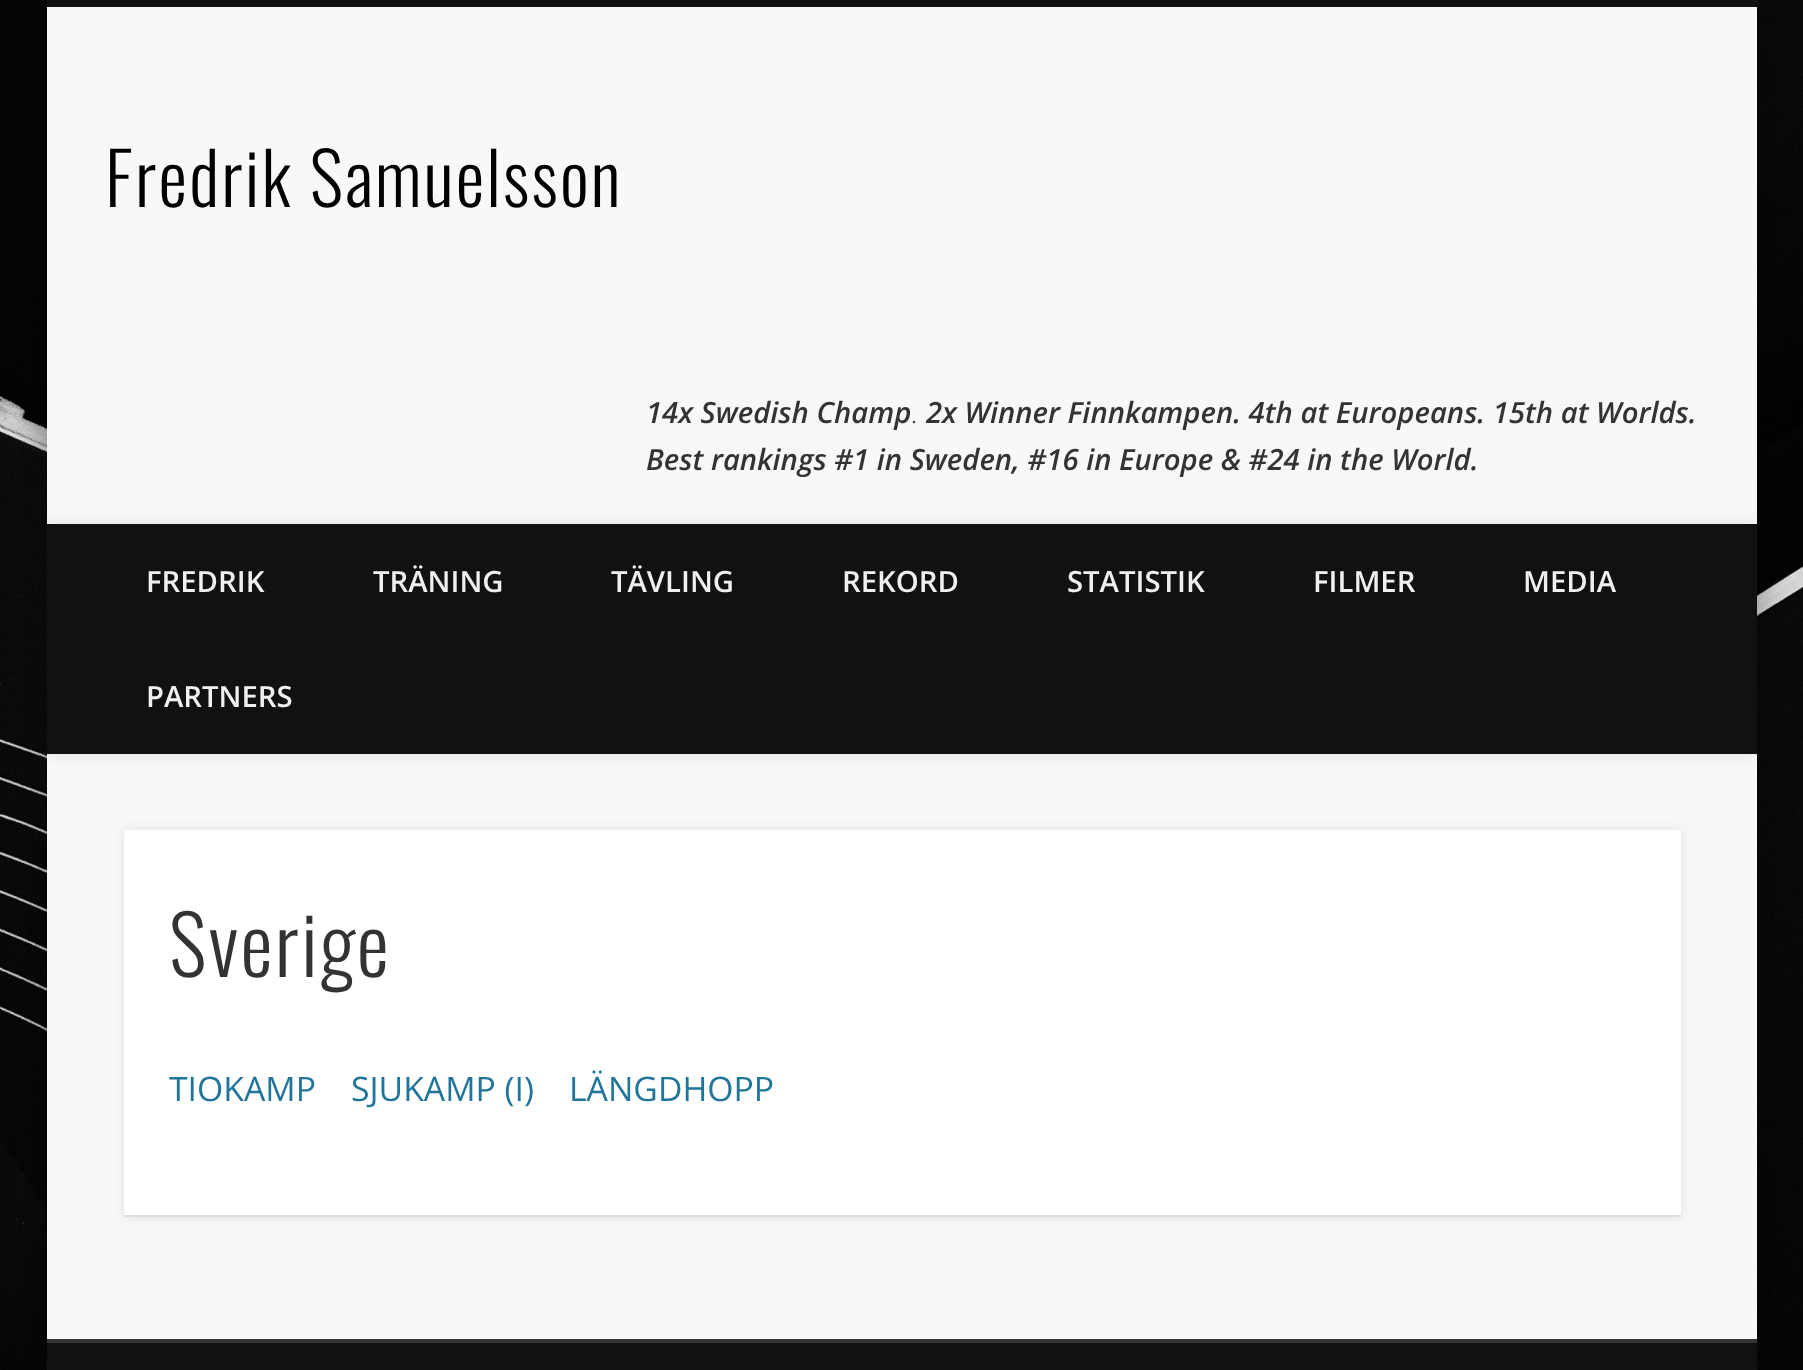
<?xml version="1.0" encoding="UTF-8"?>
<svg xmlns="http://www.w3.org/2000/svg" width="1803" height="1370">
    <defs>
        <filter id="blur1" x="-50%" y="-200%" width="200%" height="500%"><feGaussianBlur stdDeviation="20"/></filter>
        <clipPath id="clip1"><rect x="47" y="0" width="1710" height="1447"/></clipPath>
        <filter id="blur2" x="-50%" y="-200%" width="200%" height="500%"><feGaussianBlur stdDeviation="8"/></filter>
        <filter id="blur3" x="-50%" y="-200%" width="200%" height="500%"><feGaussianBlur stdDeviation="5.5"/></filter>
    </defs>
    <rect width="100%" height="100%" fill="#FFFFFF"/>
    <image x="0" y="0" width="1803" height="1370" href="img_01.png"/>
    <rect x="47" y="0" width="1710" height="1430" fill="#000000" fill-opacity="0.4" filter="url(#blur1)"/>
    <rect x="47" y="7" width="1710" height="1332" fill="#F8F8F8"/>
    <rect x="47" y="0" width="1710" height="7" fill="#111111"/>
    <text x="105" y="207" font-family="Oswald" font-size="72" font-weight="300" letter-spacing="2.25" fill="#000000">Fredrik Samuelsson</text>
    <text x="646" y="423" font-family="Open Sans" font-size="29.25" font-weight="600" font-style="italic" fill="#333333">14x Swedish Champ</text>
    <text x="912" y="423" font-family="Open Sans" font-size="29.25" font-weight="300" font-style="italic" fill="#333333">.</text>
    <text x="926" y="423" font-family="Open Sans" font-size="29.25" font-weight="600" font-style="italic" fill="#333333">2x Winner Finnkampen. 4th at Europeans. 15th at Worlds.</text>
    <text x="646" y="470" font-family="Open Sans" font-size="29.25" font-weight="600" font-style="italic" fill="#333333">Best rankings #1 in Sweden, #16 in Europe &amp; #24 in the World.</text>
    <g clip-path="url(#clip1)">
        <rect x="47" y="524" width="1710" height="230" fill="#000000" fill-opacity="0.1" filter="url(#blur2)"/>
    </g>
    <rect x="47" y="524" width="1710" height="230" fill="#111111"/>
    <text x="146" y="592" font-family="Open Sans" font-size="29.25" font-weight="600" fill="#F0F0F0">FREDRIK</text>
    <text x="373" y="592" font-family="Open Sans" font-size="29.25" font-weight="600" fill="#F0F0F0">TRÄNING</text>
    <text x="611" y="592" font-family="Open Sans" font-size="29.25" font-weight="600" fill="#F0F0F0">TÄVLING</text>
    <text x="842" y="592" font-family="Open Sans" font-size="29.25" font-weight="600" fill="#F0F0F0">REKORD</text>
    <text x="1067" y="592" font-family="Open Sans" font-size="29.25" font-weight="600" fill="#F0F0F0">STATISTIK</text>
    <text x="1313" y="592" font-family="Open Sans" font-size="29.25" font-weight="600" fill="#F0F0F0">FILMER</text>
    <text x="1523" y="592" font-family="Open Sans" font-size="29.25" font-weight="600" fill="#F0F0F0">MEDIA</text>
    <text x="146" y="707" font-family="Open Sans" font-size="29.25" font-weight="600" fill="#F0F0F0">PARTNERS</text>
    <rect x="124" y="830" width="1557" height="387" fill="#000000" fill-opacity="0.1" filter="url(#blur3)"/>
    <rect x="124" y="830" width="1557" height="385" fill="#FFFFFF"/>
    <rect x="124" y="1215" width="1557" height="2" fill="#DEDEDE"/>
    <text x="169" y="977" font-family="Oswald" font-size="81" font-weight="300" letter-spacing="2.25" fill="#333333">Sverige</text>
    <text x="169" y="1101" font-family="Open Sans" font-size="33.75" fill="#21759B">TIOKAMP</text>
    <text x="351" y="1101" font-family="Open Sans" font-size="33.75" fill="#21759B">SJUKAMP (I)</text>
    <text x="569" y="1101" font-family="Open Sans" font-size="33.75" fill="#21759B">LÄNGDHOPP</text>
    <rect x="47" y="1339" width="1710" height="4" fill="#343434"/>
    <rect x="47" y="1343" width="1710" height="27" fill="#111111"/>
</svg>
